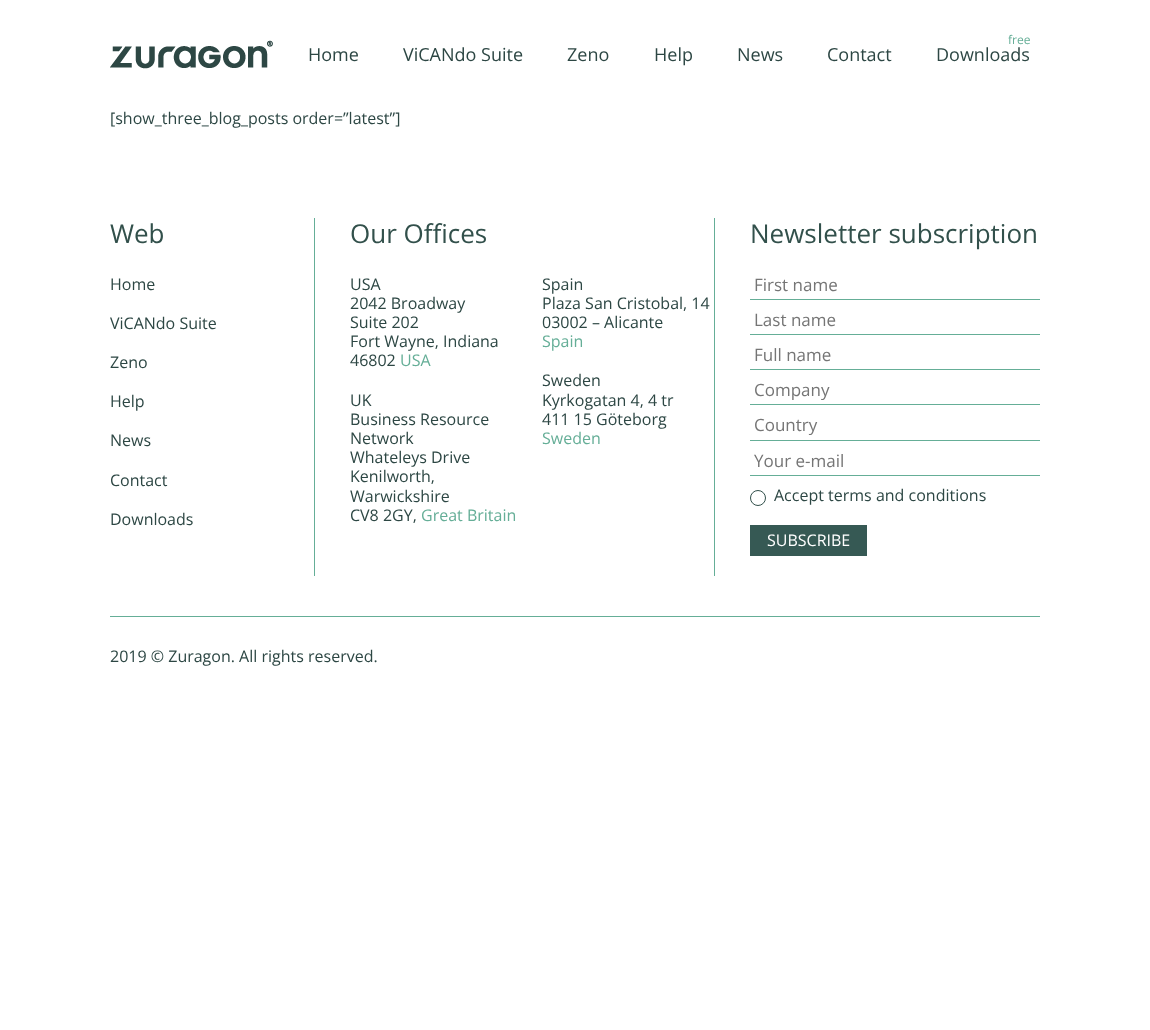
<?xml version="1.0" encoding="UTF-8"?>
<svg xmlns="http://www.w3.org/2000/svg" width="1150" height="1030">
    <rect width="100%" height="100%" fill="#FFFFFF"/>
    <image x="110" y="40" width="163" height="29" href="img_01.png"/>
    <text x="308" y="61" font-family="Open Sans" font-size="18" fill="#2D4744">Home</text>
    <text x="403" y="61" font-family="Open Sans" font-size="18" fill="#2D4744">ViCANdo Suite</text>
    <text x="567" y="61" font-family="Open Sans" font-size="18" fill="#2D4744">Zeno</text>
    <text x="654" y="61" font-family="Open Sans" font-size="18" fill="#2D4744">Help</text>
    <text x="737" y="61" font-family="Open Sans" font-size="18" fill="#2D4744">News</text>
    <text x="827" y="61" font-family="Open Sans" font-size="18" fill="#2D4744">Contact</text>
    <text x="1008" y="44" font-family="Open Sans" font-size="12" fill="#65AE97">free</text>
    <text x="936" y="61" font-family="Open Sans" font-size="18" fill="#2D4744">Downloads</text>
    <text x="110" y="124" font-family="Open Sans" font-size="16" fill="#2D4744">[show_three_blog_posts order=”latest”]</text>
    <text x="110" y="243" font-family="Open Sans" font-size="26" fill="#32504B">Web</text>
    <text x="110" y="290" font-family="Open Sans" font-size="16" fill="#2D4744">Home</text>
    <text x="110" y="329" font-family="Open Sans" font-size="16" fill="#2D4744">ViCANdo Suite</text>
    <text x="110" y="368" font-family="Open Sans" font-size="16" fill="#2D4744">Zeno</text>
    <text x="110" y="407" font-family="Open Sans" font-size="16" fill="#2D4744">Help</text>
    <text x="110" y="446" font-family="Open Sans" font-size="16" fill="#2D4744">News</text>
    <text x="110" y="486" font-family="Open Sans" font-size="16" fill="#2D4744">Contact</text>
    <text x="110" y="525" font-family="Open Sans" font-size="16" fill="#2D4744">Downloads</text>
    <rect x="314" y="218" width="1" height="358" fill="#65AE97"/>
    <text x="350" y="243" font-family="Open Sans" font-size="26" fill="#32504B">Our Offices</text>
    <text font-family="Open Sans" font-size="16" fill="#2D4744">
        <tspan x="350" y="290">USA</tspan>
        <tspan x="350" y="309">2042 Broadway</tspan>
        <tspan x="350" y="328">Suite 202</tspan>
        <tspan x="350" y="347">Fort Wayne, Indiana</tspan>
        <tspan x="350" y="366">46802</tspan>
    </text>
    <text x="400" y="366" font-family="Open Sans" font-size="16" fill="#65AE97">USA</text>
    <text font-family="Open Sans" font-size="16" fill="#2D4744">
        <tspan x="350" y="406">UK</tspan>
        <tspan x="350" y="425">Business Resource</tspan>
        <tspan x="350" y="444">Network</tspan>
        <tspan x="350" y="463">Whateleys Drive</tspan>
        <tspan x="350" y="482">Kenilworth,</tspan>
        <tspan x="350" y="502">Warwickshire</tspan>
        <tspan x="350" y="521">CV8 2GY,</tspan>
    </text>
    <text x="421" y="521" font-family="Open Sans" font-size="16" fill="#65AE97">Great Britain</text>
    <text font-family="Open Sans" font-size="16" fill="#2D4744">
        <tspan x="542" y="290">Spain</tspan>
        <tspan x="542" y="309">Plaza San Cristobal, 14</tspan>
        <tspan x="542" y="328">03002 – Alicante</tspan>
    </text>
    <text x="542" y="347" font-family="Open Sans" font-size="16" fill="#65AE97">Spain</text>
    <text font-family="Open Sans" font-size="16" fill="#2D4744">
        <tspan x="542" y="386">Sweden</tspan>
        <tspan x="542" y="406">Kyrkogatan 4, 4 tr</tspan>
        <tspan x="542" y="425">411 15 Göteborg</tspan>
    </text>
    <text x="542" y="444" font-family="Open Sans" font-size="16" fill="#65AE97">Sweden</text>
    <rect x="714" y="218" width="1" height="358" fill="#65AE97"/>
    <text x="750" y="243" font-family="Open Sans" font-size="26" fill="#32504B">Newsletter subscription</text>
    <rect x="750" y="299" width="290" height="1" fill="#65AE97"/>
    <text x="754" y="291" font-family="Open Sans" font-size="17" fill="#757575">First name</text>
    <rect x="750" y="334" width="290" height="1" fill="#65AE97"/>
    <text x="754" y="326" font-family="Open Sans" font-size="17" fill="#757575">Last name</text>
    <rect x="750" y="369" width="290" height="1" fill="#65AE97"/>
    <text x="754" y="361" font-family="Open Sans" font-size="17" fill="#757575">Full name</text>
    <rect x="750" y="404" width="290" height="1" fill="#65AE97"/>
    <text x="754" y="396" font-family="Open Sans" font-size="17" fill="#757575">Company</text>
    <rect x="750" y="440" width="290" height="1" fill="#65AE97"/>
    <text x="754" y="431" font-family="Open Sans" font-size="17" fill="#757575">Country</text>
    <rect x="750" y="475" width="290" height="1" fill="#65AE97"/>
    <text x="754" y="467" font-family="Open Sans" font-size="17" fill="#757575">Your e-mail</text>
    <circle cx="758" cy="498" r="7.5" fill="none" stroke="#32504B"/>
    <text x="774" y="501" font-family="Open Sans" font-size="16" fill="#2D4744">Accept terms and conditions</text>
    <rect x="750" y="525" width="117" height="31" fill="#365954"/>
    <text x="767" y="546" font-family="Open Sans" font-size="16" fill="#FFFFFF">SUBSCRIBE</text>
    <rect x="110" y="616" width="930" height="1" fill="#65AE97"/>
    <text x="110" y="662" font-family="Open Sans" font-size="16" fill="#2D4744">2019 © Zuragon. All rights reserved.</text>
</svg>
